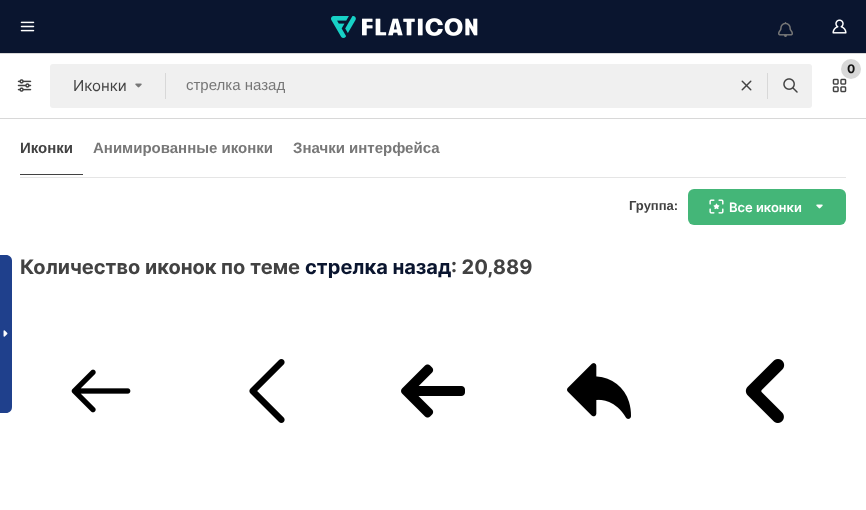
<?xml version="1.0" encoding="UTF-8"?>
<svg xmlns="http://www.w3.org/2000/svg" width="866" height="510">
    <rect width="100%" height="100%" fill="#FFFFFF"/>
    <rect x="0" y="0" width="866" height="53" fill="#0A152F"/>
    <image x="20" y="21" width="15" height="11" href="img_01.png"/>
    <image x="331" y="16" width="147" height="22" href="img_02.png"/>
    <image x="778" y="22" width="15" height="15" href="img_03.png"/>
    <image x="832" y="19" width="15" height="15" href="img_04.png"/>
    <rect x="-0.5" y="53.5" width="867" height="65" fill="none" stroke="#D8D8D8"/>
    <image x="832" y="78" width="15" height="15" href="img_05.png"/>
    <circle cx="851" cy="69" r="10" fill="#D8D8D8"/>
    <text x="847" y="73" font-family="Inter" font-size="12" font-weight="700" fill="#121212">0</text>
    <image x="17" y="79" width="15" height="13" href="img_06.png"/>
    <rect x="50" y="64" width="762" height="44" rx="3" fill="#F0F0F0"/>
    <text x="73" y="91" font-family="Inter" font-size="15" fill="#424242">Иконки</text>
    <image x="135" y="83" width="7" height="5" href="img_07.png"/>
    <rect x="165" y="73" width="1" height="26" fill="#D8D8D8"/>
    <text x="186" y="90" font-family="Liberation Sans" font-size="15" fill="#777777">стрелка назад</text>
    <image x="741" y="80" width="11" height="11" href="img_08.png"/>
    <rect x="767" y="73" width="1" height="26" fill="#D8D8D8"/>
    <image x="783" y="78" width="15" height="15" href="img_09.png"/>
    <rect x="20" y="174" width="63" height="1" fill="#424242"/>
    <text x="20" y="153" font-family="Liberation Sans" font-size="15" font-weight="700" fill="#424242">Иконки</text>
    <text x="93" y="153" font-family="Liberation Sans" font-size="15" font-weight="700" fill="#777777">Анимированные иконки</text>
    <text x="293" y="153" font-family="Liberation Sans" font-size="15" font-weight="700" fill="#777777">Значки интерфейса</text>
    <text x="629" y="210" font-family="Liberation Sans" font-size="13" font-weight="700" fill="#424242">Группа:</text>
    <rect x="688" y="189" width="158" height="36" rx="6" fill="#44B678"/>
    <image x="709" y="199" width="15" height="15" href="img_10.png"/>
    <text x="729" y="212" font-family="Inter" font-size="13" font-weight="600" fill="#FFFFFF">Все иконки</text>
    <image x="816" y="204" width="7" height="5" href="img_11.png"/>
    <rect x="20" y="177" width="826" height="1" fill="#E5E5E5"/>
    <text x="20" y="274" font-family="Inter" font-size="20" font-weight="700" fill="#424242">Количество иконок по теме</text>
    <text x="305" y="274" font-family="Inter" font-size="20" font-weight="700" fill="#0A152F">стрелка назад</text>
    <text x="451" y="274" font-family="Inter" font-size="20" font-weight="700" fill="#424242">: 20,889</text>
    <image x="71" y="369" width="60" height="44" href="img_12.png"/>
    <image x="249" y="359" width="36" height="64" href="img_13.png"/>
    <image x="401" y="364" width="64" height="54" href="img_14.png"/>
    <image x="567" y="363" width="64" height="56" href="img_15.png"/>
    <image x="745" y="359" width="40" height="64" href="img_16.png"/>
    <path d="M 0 255 H 6 C 9.5 255 12 257.5 12 261 V 407 C 12 410.5 9.5 413 6 413 H 0 Z" fill="#1F408C"/>
    <image x="3" y="330" width="5" height="7" href="img_17.png"/>
</svg>
